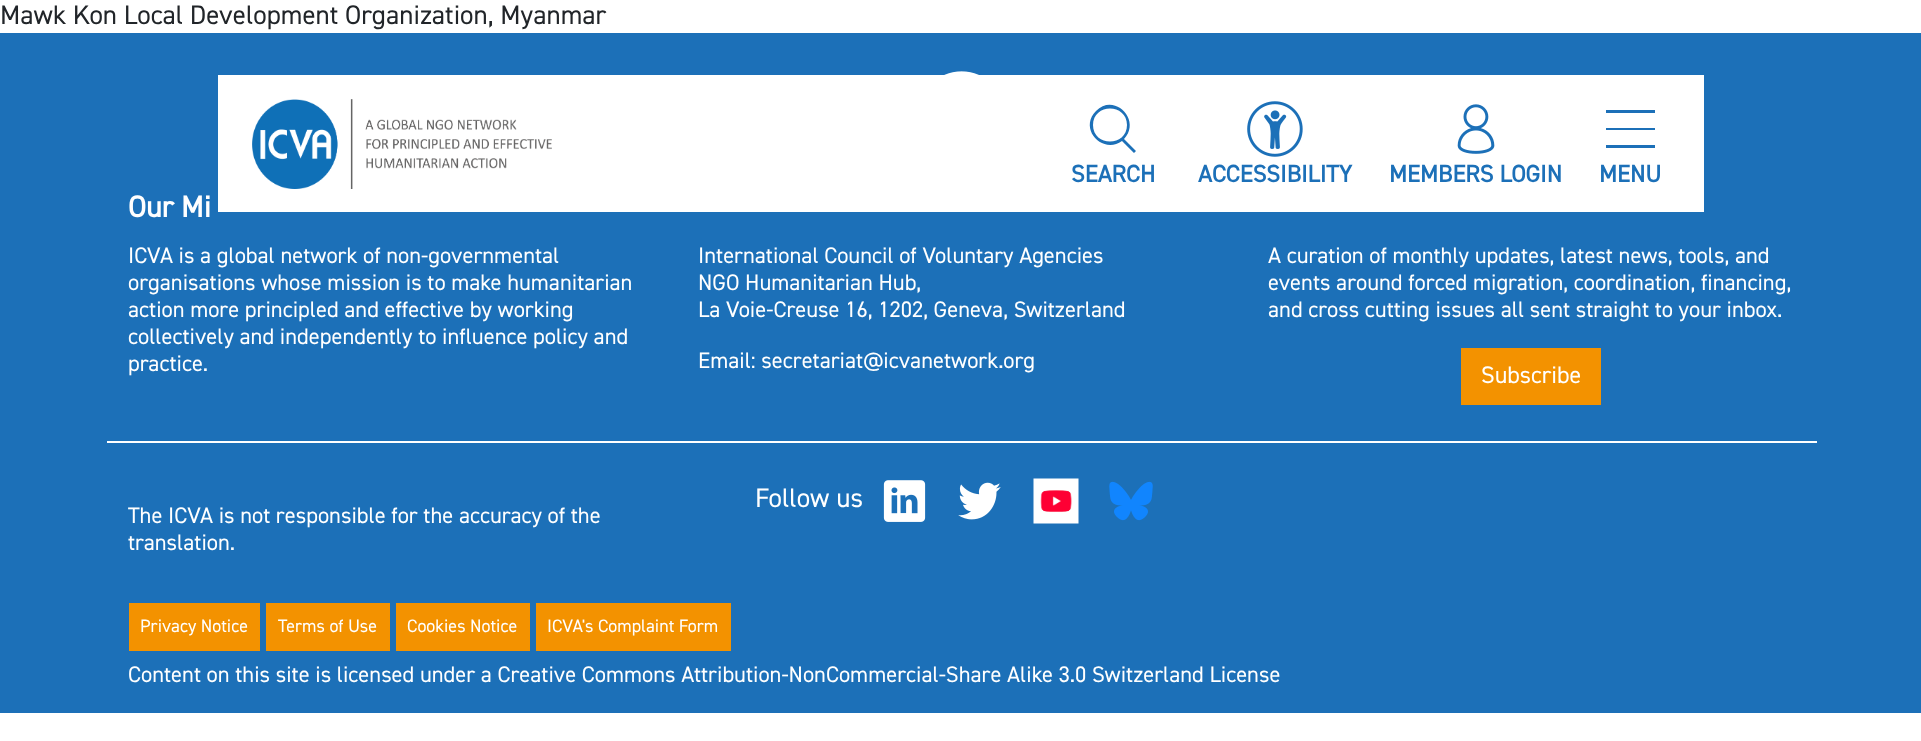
<?xml version="1.0" encoding="UTF-8"?>
<svg xmlns="http://www.w3.org/2000/svg" width="1921" height="741">
    <rect width="100%" height="100%" fill="#FFFFFF"/>
    <text x="0" y="24" font-family="'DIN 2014'" font-size="27" fill="#212529">Mawk Kon Local Development Organization, Myanmar</text>
    <rect x="0" y="33" width="1921" height="680" fill="#1C70B8"/>
    <rect x="218" y="75" width="1486" height="137" fill="#FFFFFF"/>
    <image x="252" y="99" width="300" height="90" href="img_01.png"/>
    <path d="M 1136 151 L 1124 139 C 1142 120 1114 92 1096 111 C 1078 129 1103 155 1122 141 L 1134 153 Z M 1093 125 C 1093 103 1127 103 1127 125 C 1127 147 1093 147 1093 125 Z" fill="#1C70B8"/>
    <text x="1071" y="182" font-family="'DIN 2014'" font-size="24" font-weight="700" fill="#1C70B8">SEARCH</text>
    <image x="1247" y="101" width="56" height="56" href="img_02.png"/>
    <text x="1198" y="182" font-family="'DIN 2014'" font-size="24" font-weight="700" fill="#1C70B8">ACCESSIBILITY</text>
    <image x="1457" y="104" width="38" height="50" href="img_03.png"/>
    <text x="1389" y="182" font-family="'DIN 2014'" font-size="24" font-weight="700" fill="#1C70B8">MEMBERS LOGIN</text>
    <rect x="1606" y="110" width="49" height="3" fill="#1C70B8"/>
    <rect x="1606" y="128" width="49" height="2" fill="#1C70B8"/>
    <rect x="1606" y="145" width="49" height="3" fill="#1C70B8"/>
    <text x="1599" y="182" font-family="'DIN 2014'" font-size="24" font-weight="700" fill="#1C70B8">MENU</text>
    <image x="944" y="71" width="35" height="4" href="img_04.png"/>
    <text x="128" y="217" font-family="'DIN 2014'" font-size="30" font-weight="700" fill="#FFFFFF">Our Mi</text>
    <text font-family="'DIN 2014'" font-size="22.5" fill="#FFFFFF">
        <tspan x="128" y="263">ICVA is a global network of non-governmental</tspan>
        <tspan x="128" y="290">organisations whose mission is to make humanitarian</tspan>
        <tspan x="128" y="317">action more principled and effective by working</tspan>
        <tspan x="128" y="344">collectively and independently to influence policy and</tspan>
        <tspan x="128" y="371">practice.</tspan>
    </text>
    <text font-family="'DIN 2014'" font-size="22.5" fill="#FFFFFF">
        <tspan x="698" y="263">International Council of Voluntary Agencies</tspan>
        <tspan x="698" y="290">NGO Humanitarian Hub,</tspan>
        <tspan x="698" y="317">La Voie-Creuse 16, 1202, Geneva, Switzerland</tspan>
    </text>
    <text x="698" y="368" font-family="'DIN 2014'" font-size="22.5" fill="#FFFFFF">Email: secretariat@icvanetwork.org</text>
    <text font-family="'DIN 2014'" font-size="22.5" fill="#FFFFFF">
        <tspan x="1268" y="263">A curation of monthly updates, latest news, tools, and</tspan>
        <tspan x="1268" y="290">events around forced migration, coordination, financing,</tspan>
        <tspan x="1268" y="317">and cross cutting issues all sent straight to your inbox.</tspan>
    </text>
    <rect x="1461" y="348" width="140" height="57" fill="#F39200"/>
    <text x="1481" y="383" font-family="'DIN 2014'" font-size="24" fill="#FFFFFF">Subscribe</text>
    <rect x="107" y="441" width="1710" height="2" fill="#FFFFFF"/>
    <text x="755" y="507" font-family="'DIN 2014'" font-size="27" fill="#FFFFFF">Follow us</text>
    <image x="883" y="480" width="43" height="42" href="img_05.png"/>
    <image x="958" y="482" width="43" height="38" href="img_06.png"/>
    <image x="1033" y="478" width="46" height="46" href="img_07.png"/>
    <image x="1109" y="481" width="44" height="40" href="img_08.png"/>
    <text font-family="'DIN 2014'" font-size="22.5" fill="#FFFFFF">
        <tspan x="128" y="523">The ICVA is not responsible for the accuracy of the</tspan>
        <tspan x="128" y="550">translation.</tspan>
    </text>
    <rect x="129" y="603" width="131" height="48" fill="#F39200"/>
    <text x="140" y="632" font-family="'DIN 2014'" font-size="18" fill="#FFFFFF">Privacy Notice</text>
    <rect x="266" y="603" width="124" height="48" fill="#F39200"/>
    <text x="278" y="632" font-family="'DIN 2014'" font-size="18" fill="#FFFFFF">Terms of Use</text>
    <rect x="396" y="603" width="134" height="48" fill="#F39200"/>
    <text x="407" y="632" font-family="'DIN 2014'" font-size="18" fill="#FFFFFF">Cookies Notice</text>
    <rect x="536" y="603" width="195" height="48" fill="#F39200"/>
    <text x="547" y="632" font-family="'DIN 2014'" font-size="18" fill="#FFFFFF">ICVA's Complaint Form</text>
    <text x="128" y="682" font-family="'DIN 2014'" font-size="22.5" fill="#FFFFFF">Content on this site is licensed under a Creative Commons Attribution-NonCommercial-Share Alike 3.0 Switzerland License</text>
</svg>
